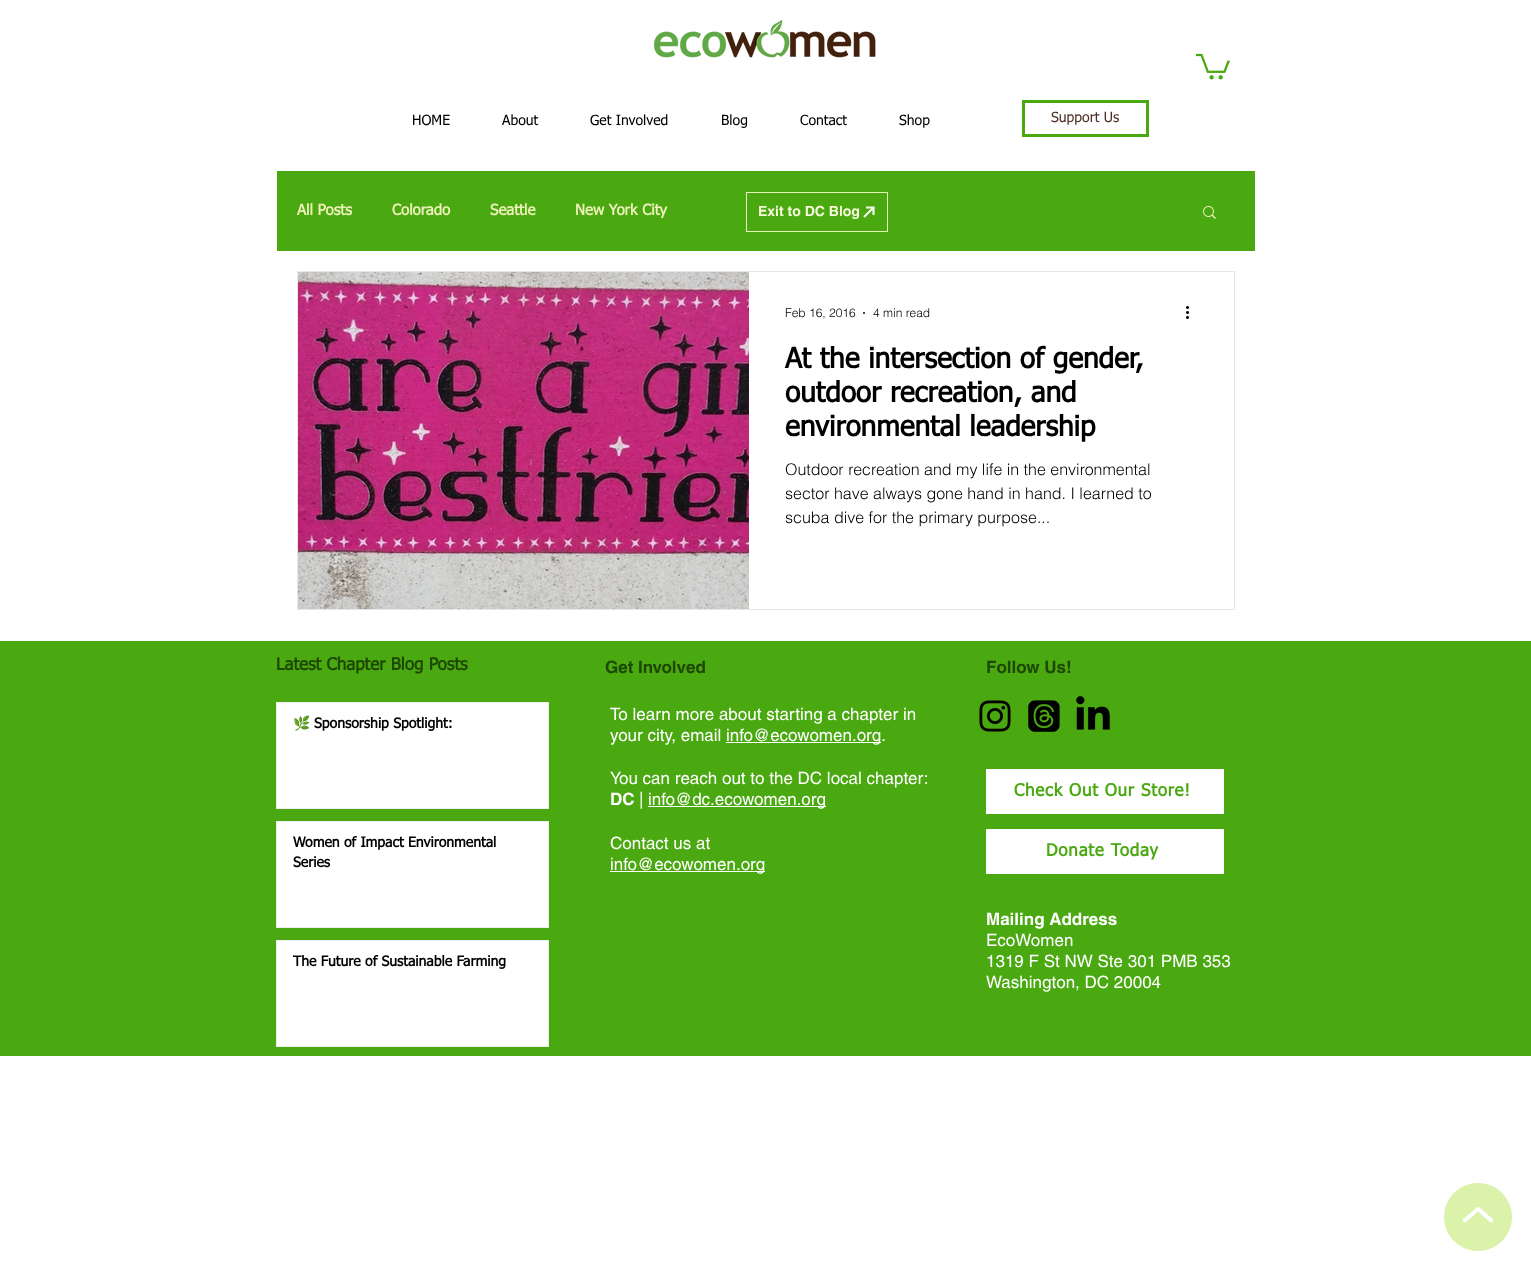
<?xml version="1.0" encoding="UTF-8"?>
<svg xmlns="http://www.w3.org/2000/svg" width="1531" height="1270">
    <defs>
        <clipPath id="clip1"><rect x="293" y="715" width="227" height="20"/></clipPath>
    </defs>
    <rect width="100%" height="100%" fill="#FFFFFF"/>
    <image x="653" y="19" width="223" height="39" href="img_01.png"/>
    <image x="1196" y="53" width="34" height="27" href="img_02.png"/>
    <text x="412" y="125" font-family="tahoma" font-size="14" fill="#000000">HOME</text>
    <text x="502" y="125" font-family="tahoma" font-size="14" fill="#000000">About</text>
    <text x="590" y="125" font-family="tahoma" font-size="14" fill="#000000">Get Involved</text>
    <text x="721" y="125" font-family="tahoma" font-size="14" fill="#000000">Blog</text>
    <text x="800" y="125" font-family="tahoma" font-size="14" fill="#000000">Contact</text>
    <text x="899" y="125" font-family="tahoma" font-size="14" fill="#000000">Shop</text>
    <rect x="1023.5" y="101.5" width="124" height="34" fill="none" stroke="#4AA810" stroke-width="3"/>
    <text x="1051" y="122" font-family="tahoma" font-size="14" fill="#4E2F25">Support Us</text>
    <rect x="277" y="171" width="978" height="80" fill="#4AA810"/>
    <text x="297" y="215" font-family="tahoma" font-size="15" font-weight="700" fill="#EBF1B7">All Posts</text>
    <text x="392" y="215" font-family="tahoma" font-size="15" font-weight="700" fill="#EBF1B7">Colorado</text>
    <text x="490" y="215" font-family="tahoma" font-size="15" font-weight="700" fill="#EBF1B7">Seattle</text>
    <text x="575" y="215" font-family="tahoma" font-size="15" font-weight="700" fill="#EBF1B7">New York City</text>
    <image x="1203" y="206" width="13" height="13" href="img_03.png"/>
    <rect x="297.5" y="271.5" width="937" height="338" fill="none" stroke="#E8E6E6"/>
    <image x="298" y="272" width="451" height="337" href="img_04.png"/>
    <text x="785" y="317" font-family="helvetica" font-size="12" font-weight="300" fill="#000000">Feb 16, 2016</text>
    <circle cx="864" cy="313" r="1" fill="#000000"/>
    <text x="873" y="317" font-family="helvetica" font-size="12" font-weight="300" fill="#000000">4 min read</text>
    <image x="1186" y="306" width="3" height="13" href="img_05.png"/>
    <text font-family="tahoma" font-size="28" font-weight="700" fill="#000000">
        <tspan x="785" y="368">At the intersection of gender,</tspan>
        <tspan x="785" y="402">outdoor recreation, and</tspan>
        <tspan x="785" y="436">environmental leadership</tspan>
    </text>
    <text font-family="helvetica" font-size="16" font-weight="300" fill="#000000">
        <tspan x="785" y="475">Outdoor recreation and my life in the environmental</tspan>
        <tspan x="785" y="499">sector have always gone hand in hand. I learned to</tspan>
        <tspan x="785" y="523">scuba dive for the primary purpose...</tspan>
    </text>
    <rect x="746.5" y="192.5" width="141" height="39" fill="none" stroke="#EBF1B7"/>
    <text x="758" y="216" font-family="helvetica" font-size="14" font-weight="700" fill="#F5F8DA">Exit to DC Blog</text>
    <path d="M 864 217 L 873.5 207.5 M 866 207.5 H 873.5 V 215" fill="none" stroke="#F2F7E1" stroke-width="2.2"/>
    <rect x="0" y="641" width="1531" height="415" fill="#4AA810"/>
    <text x="276" y="670" font-family="tahoma" font-size="17" font-weight="700" fill="#1D4702">Latest Chapter Blog Posts</text>
    <text x="605" y="673" font-family="helvetica" font-size="17" font-weight="700" fill="#1D4702">Get Involved</text>
    <text x="986" y="673" font-family="helvetica" font-size="17" font-weight="700" fill="#1D4702">Follow Us!</text>
    <rect x="276.5" y="702.5" width="272" height="106" fill="#FFFFFF" stroke="#EEECEC"/>
    <g clip-path="url(#clip1)">
        <text x="293" y="728" font-family="Noto Color Emoji" font-size="14" font-weight="700" fill="#000000">🌿</text>
    </g>
    <text x="314" y="728" font-family="tahoma" font-size="14" font-weight="700" fill="#000000">Sponsorship Spotlight:</text>
    <rect x="276.5" y="821.5" width="272" height="106" fill="#FFFFFF" stroke="#EEECEC"/>
    <text font-family="tahoma" font-size="14" font-weight="700" fill="#000000">
        <tspan x="293" y="847">Women of Impact Environmental</tspan>
        <tspan x="293" y="867">Series</tspan>
    </text>
    <rect x="276.5" y="940.5" width="272" height="106" fill="#FFFFFF" stroke="#EEECEC"/>
    <text x="293" y="966" font-family="tahoma" font-size="14" font-weight="700" fill="#000000">The Future of Sustainable Farming</text>
    <text font-family="helvetica" font-size="17" fill="#FFFFFF">
        <tspan x="610" y="720">To learn more about starting a chapter in</tspan>
        <tspan x="610" y="741">your city, email</tspan>
    </text>
    <rect x="726" y="742" width="155" height="1" fill="#FFFFFF"/>
    <text x="726" y="741" font-family="helvetica" font-size="17" fill="#FFFFFF">info@ecowomen.org.</text>
    <text x="610" y="784" font-family="helvetica" font-size="17" fill="#FFFFFF">You can reach out to the DC local chapter:</text>
    <text x="610" y="805" font-family="helvetica" font-size="17" font-weight="700" fill="#FFFFFF">DC</text>
    <text x="639" y="805" font-family="helvetica" font-size="17" fill="#FFFFFF">|</text>
    <rect x="648" y="806" width="178" height="1" fill="#FFFFFF"/>
    <text x="648" y="805" font-family="helvetica" font-size="17" fill="#FFFFFF">info@dc.ecowomen.org</text>
    <image x="979" y="700" width="32" height="32" href="img_06.png"/>
    <image x="1028" y="700" width="32" height="32" href="img_07.png"/>
    <image x="1076" y="696" width="34" height="34" href="img_08.png"/>
    <rect x="986" y="769" width="238" height="45" fill="#FFFFFF"/>
    <text x="1014" y="796" font-family="tahoma" font-size="17" font-weight="700" letter-spacing="0.8" fill="#4AA810">Check Out Our Store!</text>
    <text x="610" y="849" font-family="helvetica" font-size="17" fill="#FFFFFF">Contact us at</text>
    <rect x="610" y="871" width="155" height="1" fill="#FFFFFF"/>
    <text x="610" y="870" font-family="helvetica" font-size="17" fill="#FFFFFF">info@ecowomen.org</text>
    <rect x="986" y="829" width="238" height="45" fill="#FFFFFF"/>
    <text x="1046" y="856" font-family="tahoma" font-size="17" font-weight="700" letter-spacing="0.8" fill="#4AA810">Donate Today</text>
    <text x="986" y="925" font-family="helvetica" font-size="17" font-weight="700" fill="#FFFFFF">Mailing Address</text>
    <text font-family="helvetica" font-size="17" fill="#FFFFFF">
        <tspan x="986" y="946">EcoWomen</tspan>
        <tspan x="986" y="967">1319 F St NW Ste 301 PMB 353</tspan>
        <tspan x="986" y="988">Washington, DC 20004</tspan>
    </text>
    <image x="1444" y="1183" width="68" height="68" href="img_09.png"/>
</svg>
